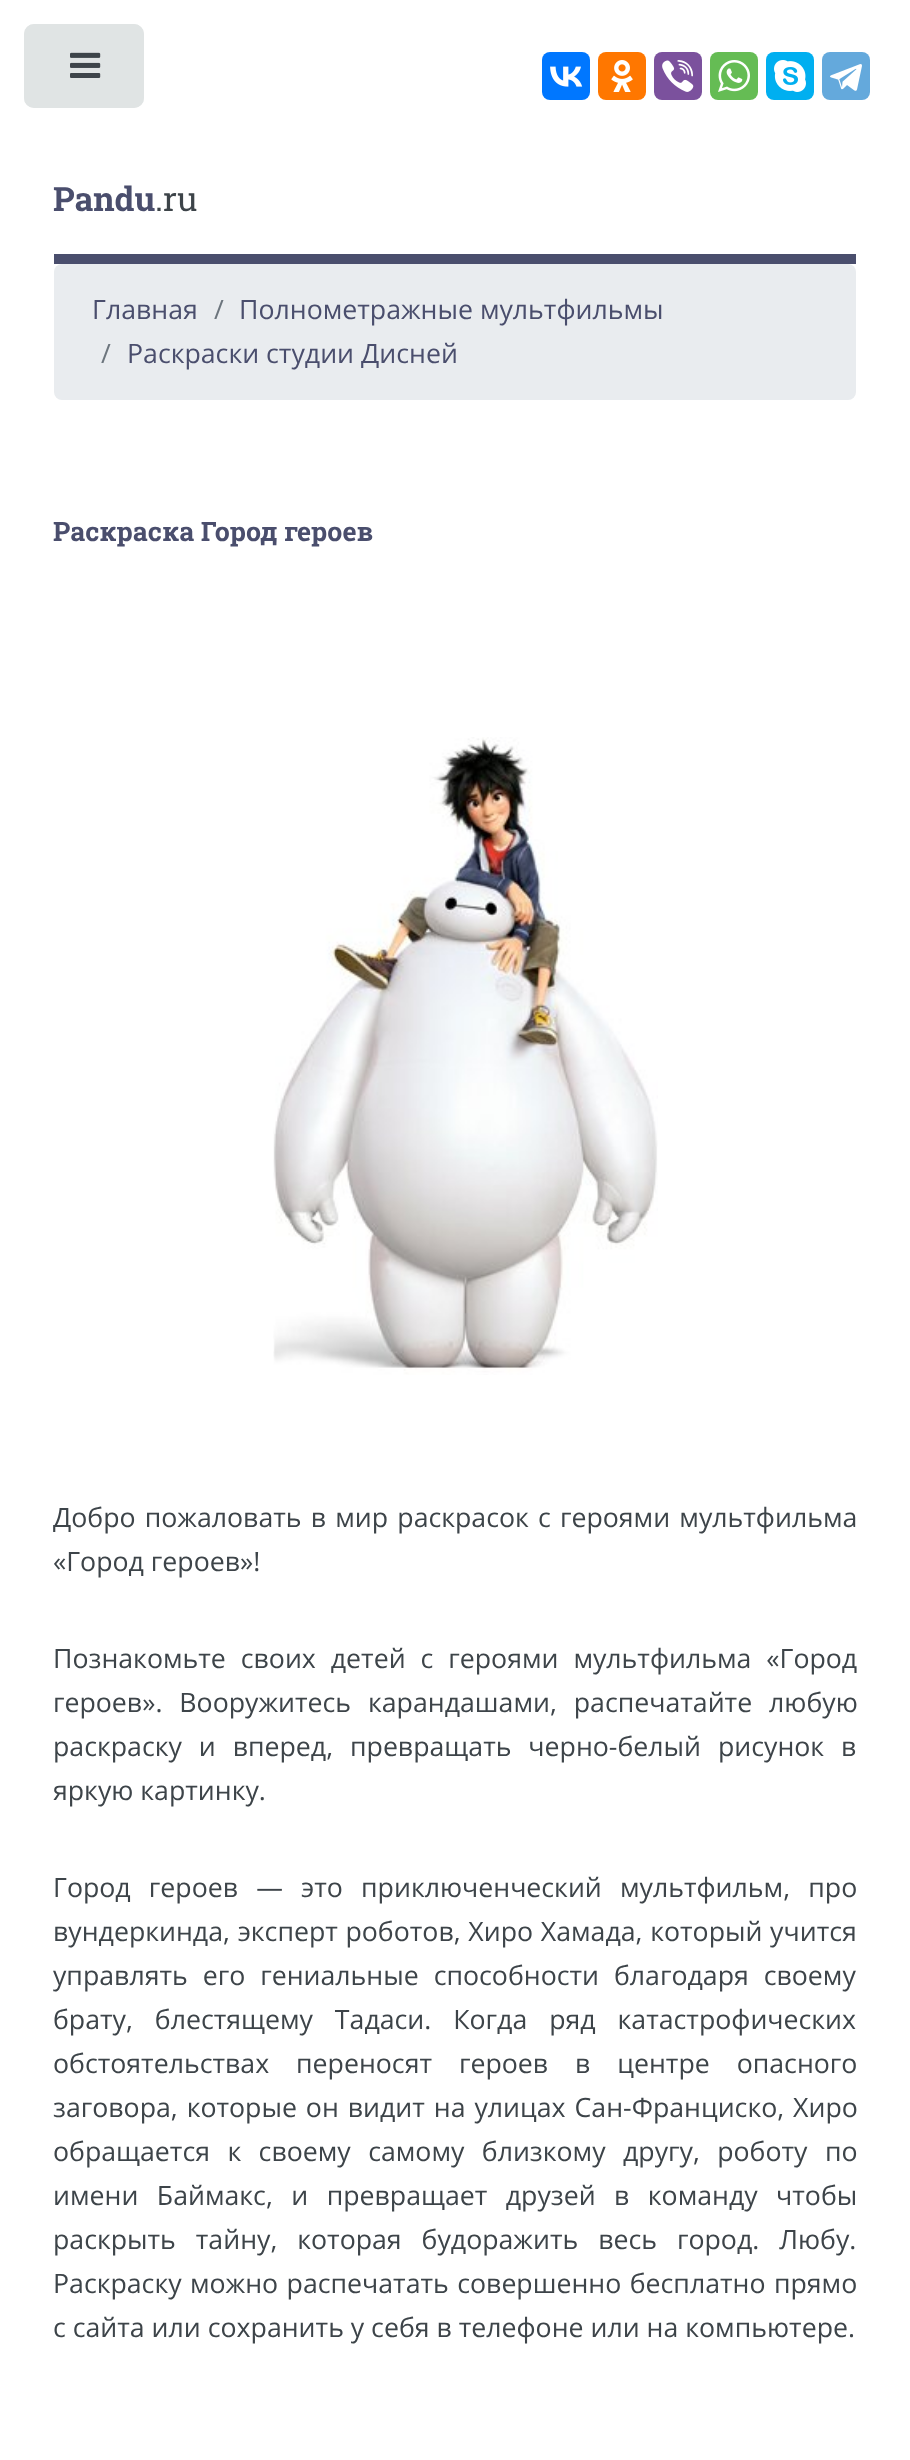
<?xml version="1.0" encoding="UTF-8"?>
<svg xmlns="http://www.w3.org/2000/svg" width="910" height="2460">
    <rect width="100%" height="100%" fill="#FFFFFF"/>
    <rect x="24" y="24" width="120" height="84" rx="10" fill="#E6E9E9"/>
    <image x="70" y="52" width="31" height="26" href="img_01.png"/>
    <rect x="24" y="24" width="120" height="84" rx="10" fill="#DEE1E2" fill-opacity="0.75"/>
    <image x="70" y="52" width="31" height="26" href="img_02.png"/>
    <rect x="54" y="254" width="802" height="10" fill="#4A4E6D"/>
    <rect x="542" y="52" width="48" height="48" rx="8" fill="#0077FF"/>
    <image x="550" y="66" width="33" height="21" href="img_03.png"/>
    <rect x="598" y="52" width="48" height="48" rx="8" fill="#FF7700"/>
    <image x="611" y="60" width="22" height="32" href="img_04.png"/>
    <rect x="654" y="52" width="48" height="48" rx="8" fill="#7B519D"/>
    <image x="662" y="60" width="32" height="32" href="img_05.png"/>
    <rect x="710" y="52" width="48" height="48" rx="8" fill="#65BC54"/>
    <image x="718" y="60" width="32" height="32" href="img_06.png"/>
    <rect x="766" y="52" width="48" height="48" rx="8" fill="#00AFF0"/>
    <image x="774" y="60" width="32" height="32" href="img_07.png"/>
    <rect x="822" y="52" width="48" height="48" rx="8" fill="#64A9DC"/>
    <image x="830" y="64" width="32" height="27" href="img_08.png"/>
    <text x="53" y="211" font-family="Roboto Slab" font-size="33.5" font-weight="700" fill="#4A4E6D">Pandu</text>
    <text x="155" y="211" font-family="Roboto Slab" font-size="33.5" fill="#3D4449">.ru</text>
    <rect x="54" y="264" width="802" height="136" rx="8" fill="#E9ECEF"/>
    <text x="92" y="319" font-family="Open Sans" font-size="26.7" fill="#4A4E6D">Главная</text>
    <text x="214" y="319" font-family="Open Sans" font-size="26.7" fill="#6C757D">/</text>
    <text x="239" y="319" font-family="Open Sans" font-size="26.7" fill="#4A4E6D">Полнометражные мультфильмы</text>
    <text x="101" y="363" font-family="Open Sans" font-size="26.7" fill="#6C757D">/</text>
    <text x="127" y="363" font-family="Open Sans" font-size="26.7" fill="#4A4E6D">Раскраски студии Дисней</text>
    <text x="53" y="541" font-family="Roboto Slab" font-size="26.7" font-weight="700" fill="#4A4E6D">Раскраска Город героев</text>
    <image x="273" y="737" width="385" height="638" href="img_09.png"/>
    <text font-family="Open Sans" font-size="26.7" fill="#3D4449">
        <tspan x="53" y="1527" word-spacing="2.25">Добро пожаловать в мир раскрасок с героями мультфильма</tspan>
        <tspan x="53" y="1571">«Город героев»!</tspan>
    </text>
    <text font-family="Open Sans" font-size="26.7" fill="#3D4449">
        <tspan x="53" y="1668" word-spacing="8">Познакомьте своих детей с героями мультфильма «Город</tspan>
        <tspan x="53" y="1712" word-spacing="10">героев». Вооружитесь карандашами, распечатайте любую</tspan>
        <tspan x="53" y="1756" word-spacing="10">раскраску и вперед, превращать черно-белый рисунок в</tspan>
        <tspan x="53" y="1800">яркую картинку.</tspan>
    </text>
    <text font-family="Open Sans" font-size="26.7" fill="#3D4449">
        <tspan x="53" y="1897" word-spacing="11.25">Город героев — это приключенческий мультфильм, про</tspan>
        <tspan x="53" y="1941" word-spacing="0.75">вундеркинда, эксперт роботов, Хиро Хамада, который учится</tspan>
        <tspan x="53" y="1985" word-spacing="8">управлять его гениальные способности благодаря своему</tspan>
        <tspan x="53" y="2029" word-spacing="15">брату, блестящему Тадаси. Когда ряд катастрофических</tspan>
        <tspan x="53" y="2073" word-spacing="20">обстоятельствах переносят героев в центре опасного</tspan>
        <tspan x="53" y="2117" word-spacing="2">заговора, которые он видит на улицах Сан-Франциско, Хиро</tspan>
        <tspan x="53" y="2161" word-spacing="10.5">обращается к своему самому близкому другу, роботу по</tspan>
        <tspan x="53" y="2205" word-spacing="11.5">имени Баймакс, и превращает друзей в команду чтобы</tspan>
        <tspan x="53" y="2249" word-spacing="13">раскрыть тайну, которая будоражить весь город. Любу.</tspan>
        <tspan x="53" y="2293" word-spacing="1.5">Раскраску можно распечатать совершенно бесплатно прямо</tspan>
        <tspan x="53" y="2337">с сайта или сохранить у себя в телефоне или на компьютере.</tspan>
    </text>
</svg>
